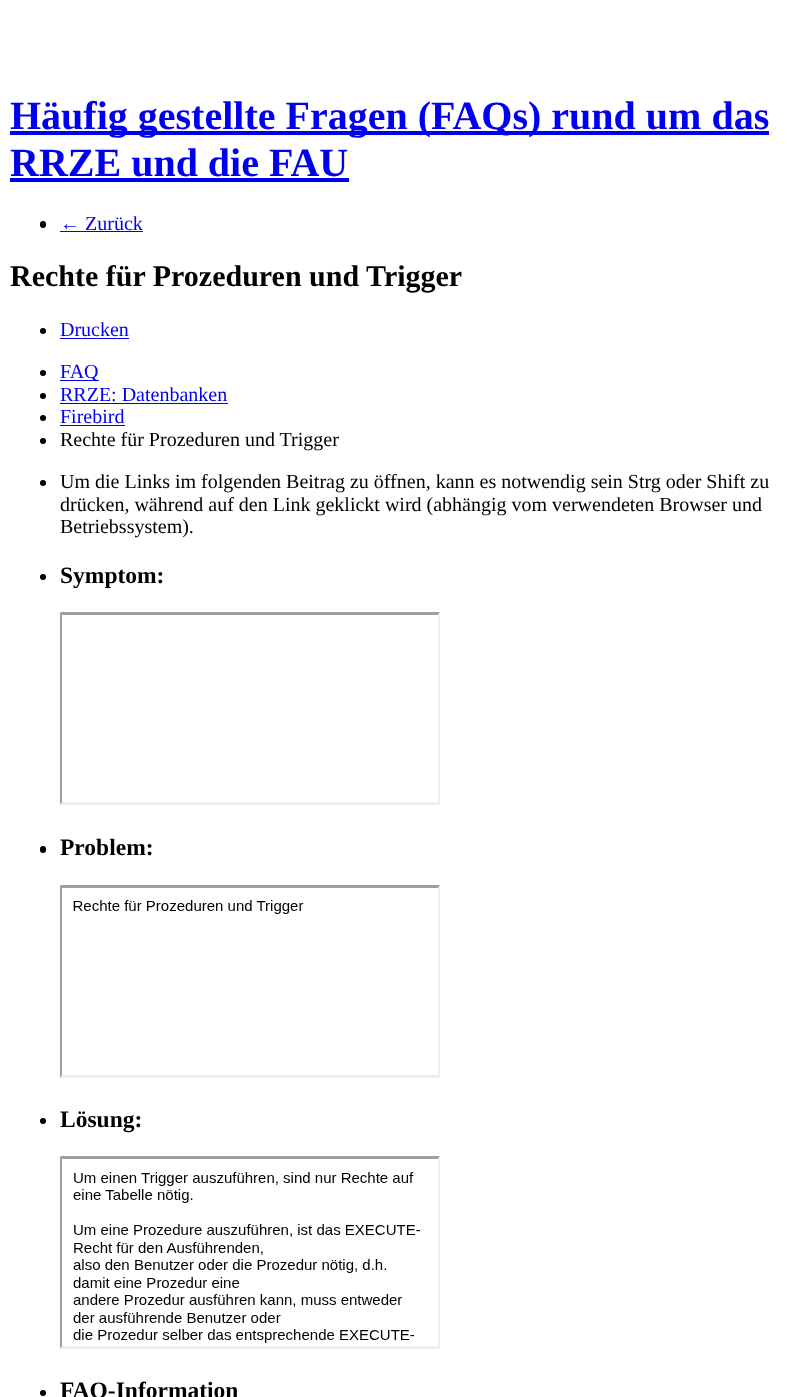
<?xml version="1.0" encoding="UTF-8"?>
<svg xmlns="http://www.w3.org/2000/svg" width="787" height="1397">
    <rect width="100%" height="100%" fill="#FFFFFF"/>
    <rect x="10" y="131" width="759" height="4" fill="#0000EE"/>
    <text font-family="Liberation Serif" font-size="40" font-weight="700" fill="#0000EE">
        <tspan x="10" y="129">Häufig gestellte Fragen (FAQs) rund um das</tspan>
        <tspan x="10" y="176">RRZE und die FAU</tspan>
    </text>
    <rect x="10" y="178" width="339" height="4" fill="#0000EE"/>
    <rect x="40" y="221" width="6" height="7" rx="3" fill="#000000"/>
    <text x="60" y="230" font-family="Liberation Serif" font-size="20" fill="#0000EE">← Zurück</text>
    <rect x="60" y="231" width="83" height="1" fill="#0000EE"/>
    <text x="10" y="286" font-family="Liberation Serif" font-size="30" font-weight="700" fill="#000000">Rechte für Prozeduren und Trigger</text>
    <circle cx="43" cy="331" r="3" fill="#000000"/>
    <text x="60" y="336" font-family="Liberation Serif" font-size="20" fill="#0000EE">Drucken</text>
    <rect x="60" y="338" width="69" height="1" fill="#0000EE"/>
    <circle cx="43" cy="373" r="3" fill="#000000"/>
    <rect x="60" y="380" width="39" height="1" fill="#0000EE"/>
    <text x="60" y="378" font-family="Liberation Serif" font-size="20" fill="#0000EE">FAQ</text>
    <circle cx="43" cy="396" r="3" fill="#000000"/>
    <text x="60" y="401" font-family="Liberation Serif" font-size="20" fill="#0000EE">RRZE: Datenbanken</text>
    <rect x="60" y="403" width="168" height="1" fill="#0000EE"/>
    <circle cx="43" cy="418" r="3" fill="#000000"/>
    <text x="60" y="423" font-family="Liberation Serif" font-size="20" fill="#0000EE">Firebird</text>
    <rect x="60" y="425" width="65" height="1" fill="#0000EE"/>
    <circle cx="43" cy="441" r="3" fill="#000000"/>
    <text x="60" y="446" font-family="Liberation Serif" font-size="20" fill="#000000">Rechte für Prozeduren und Trigger</text>
    <circle cx="43" cy="483" r="3" fill="#000000"/>
    <text font-family="Liberation Serif" font-size="20" fill="#000000">
        <tspan x="60" y="488">Um die Links im folgenden Beitrag zu öffnen, kann es notwendig sein Strg oder Shift zu</tspan>
        <tspan x="60" y="511">drücken, während auf den Link geklickt wird (abhängig vom verwendeten Browser und</tspan>
        <tspan x="60" y="533">Betriebssystem).</tspan>
    </text>
    <circle cx="43" cy="577" r="3" fill="#000000"/>
    <text x="60" y="583" font-family="Liberation Serif" font-size="23.5" font-weight="700" fill="#000000">Symptom:</text>
    <path d="M 60 612 H 440 L 438 615 H 62 Z" fill="#9F9F9F"/>
    <path d="M 440 612 V 805 L 438 802 V 615 Z" fill="#EEEEEE"/>
    <path d="M 440 805 H 60 L 62 802 H 438 Z" fill="#EEEEEE"/>
    <path d="M 60 805 V 612 L 62 615 V 802 Z" fill="#9F9F9F"/>
    <rect x="40" y="846" width="6" height="7" rx="3" fill="#000000"/>
    <text x="60" y="855" font-family="Liberation Serif" font-size="23.5" font-weight="700" fill="#000000">Problem:</text>
    <path d="M 60 885 H 440 L 438 888 H 62 Z" fill="#9F9F9F"/>
    <path d="M 440 885 V 1078 L 438 1075 V 888 Z" fill="#EEEEEE"/>
    <path d="M 440 1078 H 60 L 62 1075 H 438 Z" fill="#EEEEEE"/>
    <path d="M 60 1078 V 885 L 62 888 V 1075 Z" fill="#9F9F9F"/>
    <image x="73" y="900" width="231" height="14" href="img_01.png"/>
    <circle cx="43" cy="1121" r="3" fill="#000000"/>
    <text x="60" y="1127" font-family="Liberation Serif" font-size="23.5" font-weight="700" fill="#000000">Lösung:</text>
    <path d="M 60 1156 H 440 L 438 1159 H 62 Z" fill="#9F9F9F"/>
    <path d="M 440 1156 V 1349 L 438 1346 V 1159 Z" fill="#EEEEEE"/>
    <path d="M 440 1349 H 60 L 62 1346 H 438 Z" fill="#EEEEEE"/>
    <path d="M 60 1349 V 1156 L 62 1159 V 1346 Z" fill="#9F9F9F"/>
    <image x="73" y="1172" width="348" height="171" href="img_02.png"/>
    <circle cx="43" cy="1393" r="3" fill="#000000"/>
    <text x="60" y="1398" font-family="Liberation Serif" font-size="23.5" font-weight="700" fill="#000000">FAQ-Information</text>
</svg>
